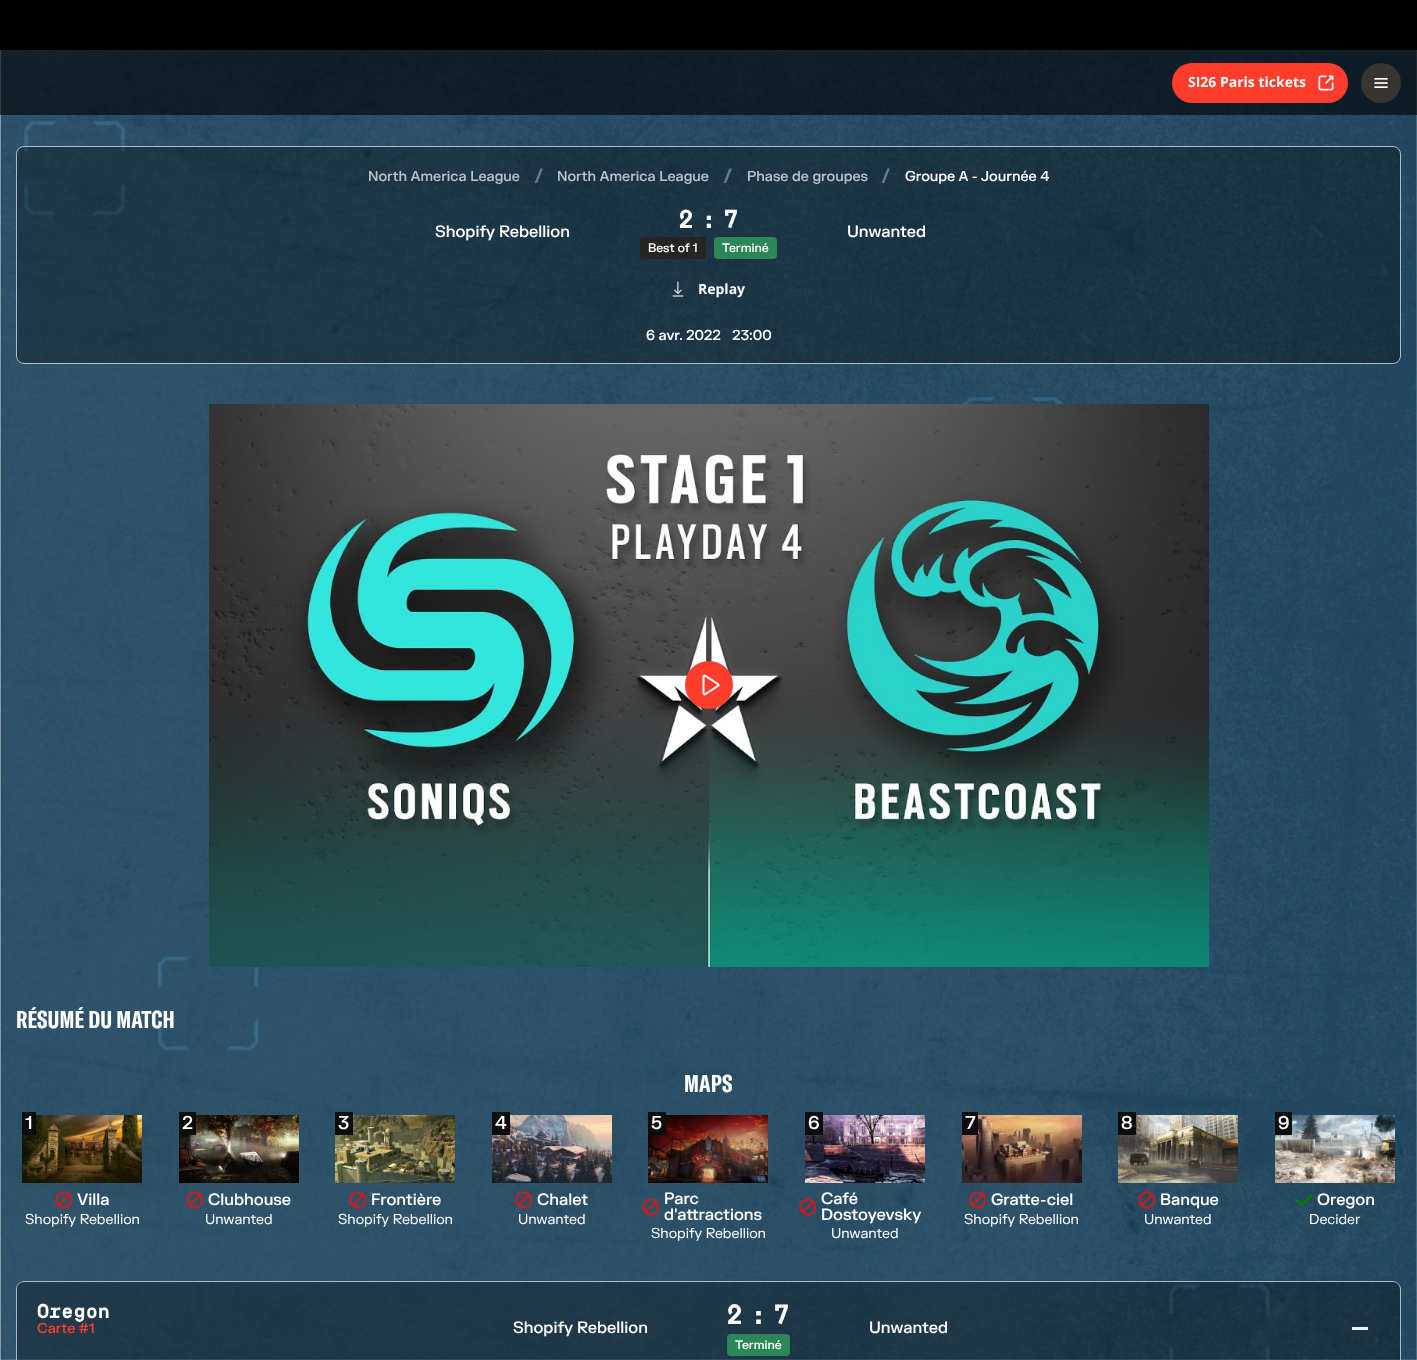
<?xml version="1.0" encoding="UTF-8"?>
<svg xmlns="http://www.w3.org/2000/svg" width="1417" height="1360">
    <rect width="100%" height="100%" fill="#FFFFFF"/>
    <image x="0" y="50" width="1417" height="1310" href="img_01.png"/>
    <rect x="0" y="0" width="1417" height="50" fill="#000000"/>
    <rect x="0" y="50" width="1417" height="65" fill="#000000" fill-opacity="0.6"/>
    <rect x="1172" y="63" width="176" height="40" rx="20" fill="#FF3D2C"/>
    <text x="1188" y="87" font-family="Open Sans" font-size="14" font-weight="700" fill="#FEFEFE">SI26 Paris tickets</text>
    <image x="1318" y="75" width="16" height="16" href="img_02.png"/>
    <circle cx="1381" cy="83" r="20" fill="#383530"/>
    <image x="1374" y="78" width="14" height="10" href="img_03.png"/>
    <rect x="16.5" y="146.5" width="1384" height="217" rx="7.5" fill="#000000" fill-opacity="0.3" stroke="#B0BAC6"/>
    <text x="368" y="181" font-family="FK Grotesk" font-size="14" font-weight="500" fill="#BBC3C8">North America League</text>
    <text x="534" y="183" font-family="FK Grotesk" font-size="20" font-weight="500" fill="#6A7B86">/</text>
    <text x="557" y="181" font-family="FK Grotesk" font-size="14" font-weight="500" fill="#BBC3C8">North America League</text>
    <text x="723" y="183" font-family="FK Grotesk" font-size="20" font-weight="500" fill="#6A7B86">/</text>
    <text x="747" y="181" font-family="FK Grotesk" font-size="14" font-weight="500" fill="#BBC3C8">Phase de groupes</text>
    <text x="881" y="183" font-family="FK Grotesk" font-size="20" font-weight="500" fill="#6A7B86">/</text>
    <text x="905" y="181" font-family="FK Grotesk" font-size="14" font-weight="500" fill="#FEFEFE">Groupe A - Journée 4</text>
    <text x="435" y="237" font-family="FK Grotesk" font-size="16" font-weight="500" fill="#FEFEFE">Shopify Rebellion</text>
    <text x="678" y="228" font-family="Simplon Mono" font-size="26" font-weight="700" fill="#FEFEFE">2</text>
    <text x="701" y="228" font-family="Simplon Mono" font-size="26" font-weight="700" fill="#FEFEFE">:</text>
    <text x="723" y="228" font-family="Simplon Mono" font-size="26" font-weight="700" fill="#FEFEFE">7</text>
    <rect x="640" y="237" width="66" height="22" rx="4" fill="#272521"/>
    <text x="648" y="252" font-family="FK Grotesk" font-size="12" font-weight="500" fill="#FEFEFE">Best of 1</text>
    <rect x="714" y="237" width="63" height="22" rx="4" fill="#2D8656"/>
    <text x="722" y="252" font-family="FK Grotesk" font-size="12" font-weight="500" fill="#FEFEFE">Terminé</text>
    <text x="847" y="237" font-family="FK Grotesk" font-size="16" font-weight="500" fill="#FEFEFE">Unwanted</text>
    <image x="672" y="281" width="12" height="16" href="img_04.png"/>
    <text x="698" y="294" font-family="Open Sans" font-size="14" font-weight="700" fill="#FEFEFE">Replay</text>
    <text x="646" y="340" font-family="FK Grotesk" font-size="14" font-weight="500" fill="#FEFEFE">6 avr. 2022</text>
    <text x="732" y="340" font-family="FK Grotesk" font-size="14" font-weight="500" fill="#FEFEFE">23:00</text>
    <image x="209" y="404" width="1000" height="563" href="img_05.png"/>
    <circle cx="709" cy="685" r="24" fill="#FF3D2C"/>
    <image x="702" y="674" width="18" height="22" href="img_06.png"/>
    <text x="16" y="1028" font-family="GT America" font-size="24" font-weight="700" letter-spacing="0.1" fill="#FEFEFE">RÉSUMÉ DU MATCH</text>
    <text x="684" y="1092" font-family="GT America" font-size="24" font-weight="700" letter-spacing="0.1" fill="#FEFEFE">MAPS</text>
    <image x="22" y="1115" width="120" height="68" href="img_07.png"/>
    <rect x="22" y="1112" width="14" height="23" fill="#0D0D0D"/>
    <text x="25" y="1129" font-family="FK Grotesk" font-size="18" font-weight="500" fill="#FEFEFE">1</text>
    <image x="55" y="1191" width="17" height="18" href="img_08.png"/>
    <text x="77" y="1205" font-family="FK Grotesk" font-size="16" font-weight="500" fill="#FEFEFE">Villa</text>
    <text x="25" y="1224" font-family="FK Grotesk" font-size="14" fill="#FEFEFE">Shopify Rebellion</text>
    <image x="179" y="1115" width="120" height="68" href="img_09.png"/>
    <rect x="179" y="1112" width="17" height="23" fill="#0D0D0D"/>
    <text x="182" y="1129" font-family="FK Grotesk" font-size="18" font-weight="500" fill="#FEFEFE">2</text>
    <image x="186" y="1191" width="17" height="18" href="img_10.png"/>
    <text x="208" y="1205" font-family="FK Grotesk" font-size="16" font-weight="500" fill="#FEFEFE">Clubhouse</text>
    <text x="205" y="1224" font-family="FK Grotesk" font-size="14" fill="#FEFEFE">Unwanted</text>
    <image x="335" y="1115" width="120" height="68" href="img_11.png"/>
    <rect x="335" y="1112" width="18" height="23" fill="#0D0D0D"/>
    <text x="338" y="1129" font-family="FK Grotesk" font-size="18" font-weight="500" fill="#FEFEFE">3</text>
    <image x="349" y="1191" width="17" height="18" href="img_12.png"/>
    <text x="371" y="1205" font-family="FK Grotesk" font-size="16" font-weight="500" fill="#FEFEFE">Frontière</text>
    <text x="338" y="1224" font-family="FK Grotesk" font-size="14" fill="#FEFEFE">Shopify Rebellion</text>
    <image x="492" y="1115" width="120" height="68" href="img_13.png"/>
    <rect x="492" y="1112" width="18" height="23" fill="#0D0D0D"/>
    <text x="495" y="1129" font-family="FK Grotesk" font-size="18" font-weight="500" fill="#FEFEFE">4</text>
    <image x="515" y="1191" width="17" height="18" href="img_14.png"/>
    <text x="537" y="1205" font-family="FK Grotesk" font-size="16" font-weight="500" fill="#FEFEFE">Chalet</text>
    <text x="518" y="1224" font-family="FK Grotesk" font-size="14" fill="#FEFEFE">Unwanted</text>
    <image x="648" y="1115" width="120" height="68" href="img_15.png"/>
    <rect x="648" y="1112" width="18" height="23" fill="#0D0D0D"/>
    <text x="651" y="1129" font-family="FK Grotesk" font-size="18" font-weight="500" fill="#FEFEFE">5</text>
    <image x="642" y="1198" width="17" height="18" href="img_16.png"/>
    <text font-family="FK Grotesk" font-size="16" font-weight="500" fill="#FEFEFE">
        <tspan x="664" y="1204">Parc</tspan>
        <tspan x="664" y="1220">d'attractions</tspan>
    </text>
    <text x="651" y="1238" font-family="FK Grotesk" font-size="14" fill="#FEFEFE">Shopify Rebellion</text>
    <image x="805" y="1115" width="120" height="68" href="img_17.png"/>
    <rect x="805" y="1112" width="18" height="23" fill="#0D0D0D"/>
    <text x="808" y="1129" font-family="FK Grotesk" font-size="18" font-weight="500" fill="#FEFEFE">6</text>
    <image x="799" y="1198" width="17" height="18" href="img_18.png"/>
    <text font-family="FK Grotesk" font-size="16" font-weight="500" fill="#FEFEFE">
        <tspan x="821" y="1204">Café</tspan>
        <tspan x="821" y="1220">Dostoyevsky</tspan>
    </text>
    <text x="831" y="1238" font-family="FK Grotesk" font-size="14" fill="#FEFEFE">Unwanted</text>
    <image x="962" y="1115" width="120" height="68" href="img_19.png"/>
    <rect x="962" y="1112" width="16" height="23" fill="#0D0D0D"/>
    <text x="965" y="1129" font-family="FK Grotesk" font-size="18" font-weight="500" fill="#FEFEFE">7</text>
    <image x="969" y="1191" width="17" height="18" href="img_20.png"/>
    <text x="991" y="1205" font-family="FK Grotesk" font-size="16" font-weight="500" fill="#FEFEFE">Gratte-ciel</text>
    <text x="964" y="1224" font-family="FK Grotesk" font-size="14" fill="#FEFEFE">Shopify Rebellion</text>
    <image x="1118" y="1115" width="120" height="68" href="img_21.png"/>
    <rect x="1118" y="1112" width="18" height="23" fill="#0D0D0D"/>
    <text x="1121" y="1129" font-family="FK Grotesk" font-size="18" font-weight="500" fill="#FEFEFE">8</text>
    <image x="1138" y="1191" width="17" height="18" href="img_22.png"/>
    <text x="1160" y="1205" font-family="FK Grotesk" font-size="16" font-weight="500" fill="#FEFEFE">Banque</text>
    <text x="1144" y="1224" font-family="FK Grotesk" font-size="14" fill="#FEFEFE">Unwanted</text>
    <image x="1275" y="1115" width="120" height="68" href="img_23.png"/>
    <rect x="1275" y="1112" width="17" height="23" fill="#0D0D0D"/>
    <text x="1278" y="1129" font-family="FK Grotesk" font-size="18" font-weight="500" fill="#FEFEFE">9</text>
    <image x="1295" y="1194" width="18" height="12" href="img_24.png"/>
    <text x="1317" y="1205" font-family="FK Grotesk" font-size="16" font-weight="500" fill="#FEFEFE">Oregon</text>
    <text x="1309" y="1224" font-family="FK Grotesk" font-size="14" fill="#FEFEFE">Decider</text>
    <path d="M 24 1281 H 1393 C 1397.5 1281 1401 1284.5 1401 1289 V 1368 H 16 V 1289 C 16 1284.5 19.5 1281 24 1281 Z" fill="#000000" fill-opacity="0.3"/>
    <path d="M 24 1281 H 1393 C 1397 1281 1401 1285 1401 1289 V 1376 H 16 V 1289 C 16 1285 20 1281 24 1281 Z M 24 1282 H 1393 C 1397 1282 1400 1285 1400 1289 V 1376 H 17 V 1289 C 17 1285 20 1282 24 1282 Z" fill="#B0BAC6" fill-rule="evenodd"/>
    <text x="37" y="1318" font-family="Simplon Mono" font-size="20" font-weight="700" fill="#FEFEFE">Oregon</text>
    <text x="37" y="1333" font-family="FK Grotesk" font-size="14" font-weight="500" fill="#FF3D2C">Carte #1</text>
    <text x="513" y="1333" font-family="FK Grotesk" font-size="16" font-weight="500" fill="#FEFEFE">Shopify Rebellion</text>
    <text x="726" y="1324" font-family="Simplon Mono" font-size="28" font-weight="700" fill="#FEFEFE">2</text>
    <text x="750" y="1324" font-family="Simplon Mono" font-size="28" font-weight="700" fill="#FEFEFE">:</text>
    <text x="773" y="1324" font-family="Simplon Mono" font-size="28" font-weight="700" fill="#FEFEFE">7</text>
    <rect x="727" y="1334" width="63" height="22" rx="4" fill="#2D8656"/>
    <text x="735" y="1349" font-family="FK Grotesk" font-size="12" font-weight="500" fill="#FEFEFE">Terminé</text>
    <text x="869" y="1333" font-family="FK Grotesk" font-size="16" font-weight="500" fill="#FEFEFE">Unwanted</text>
    <rect x="1352" y="1327" width="16" height="3" fill="#F2F2F2"/>
</svg>
